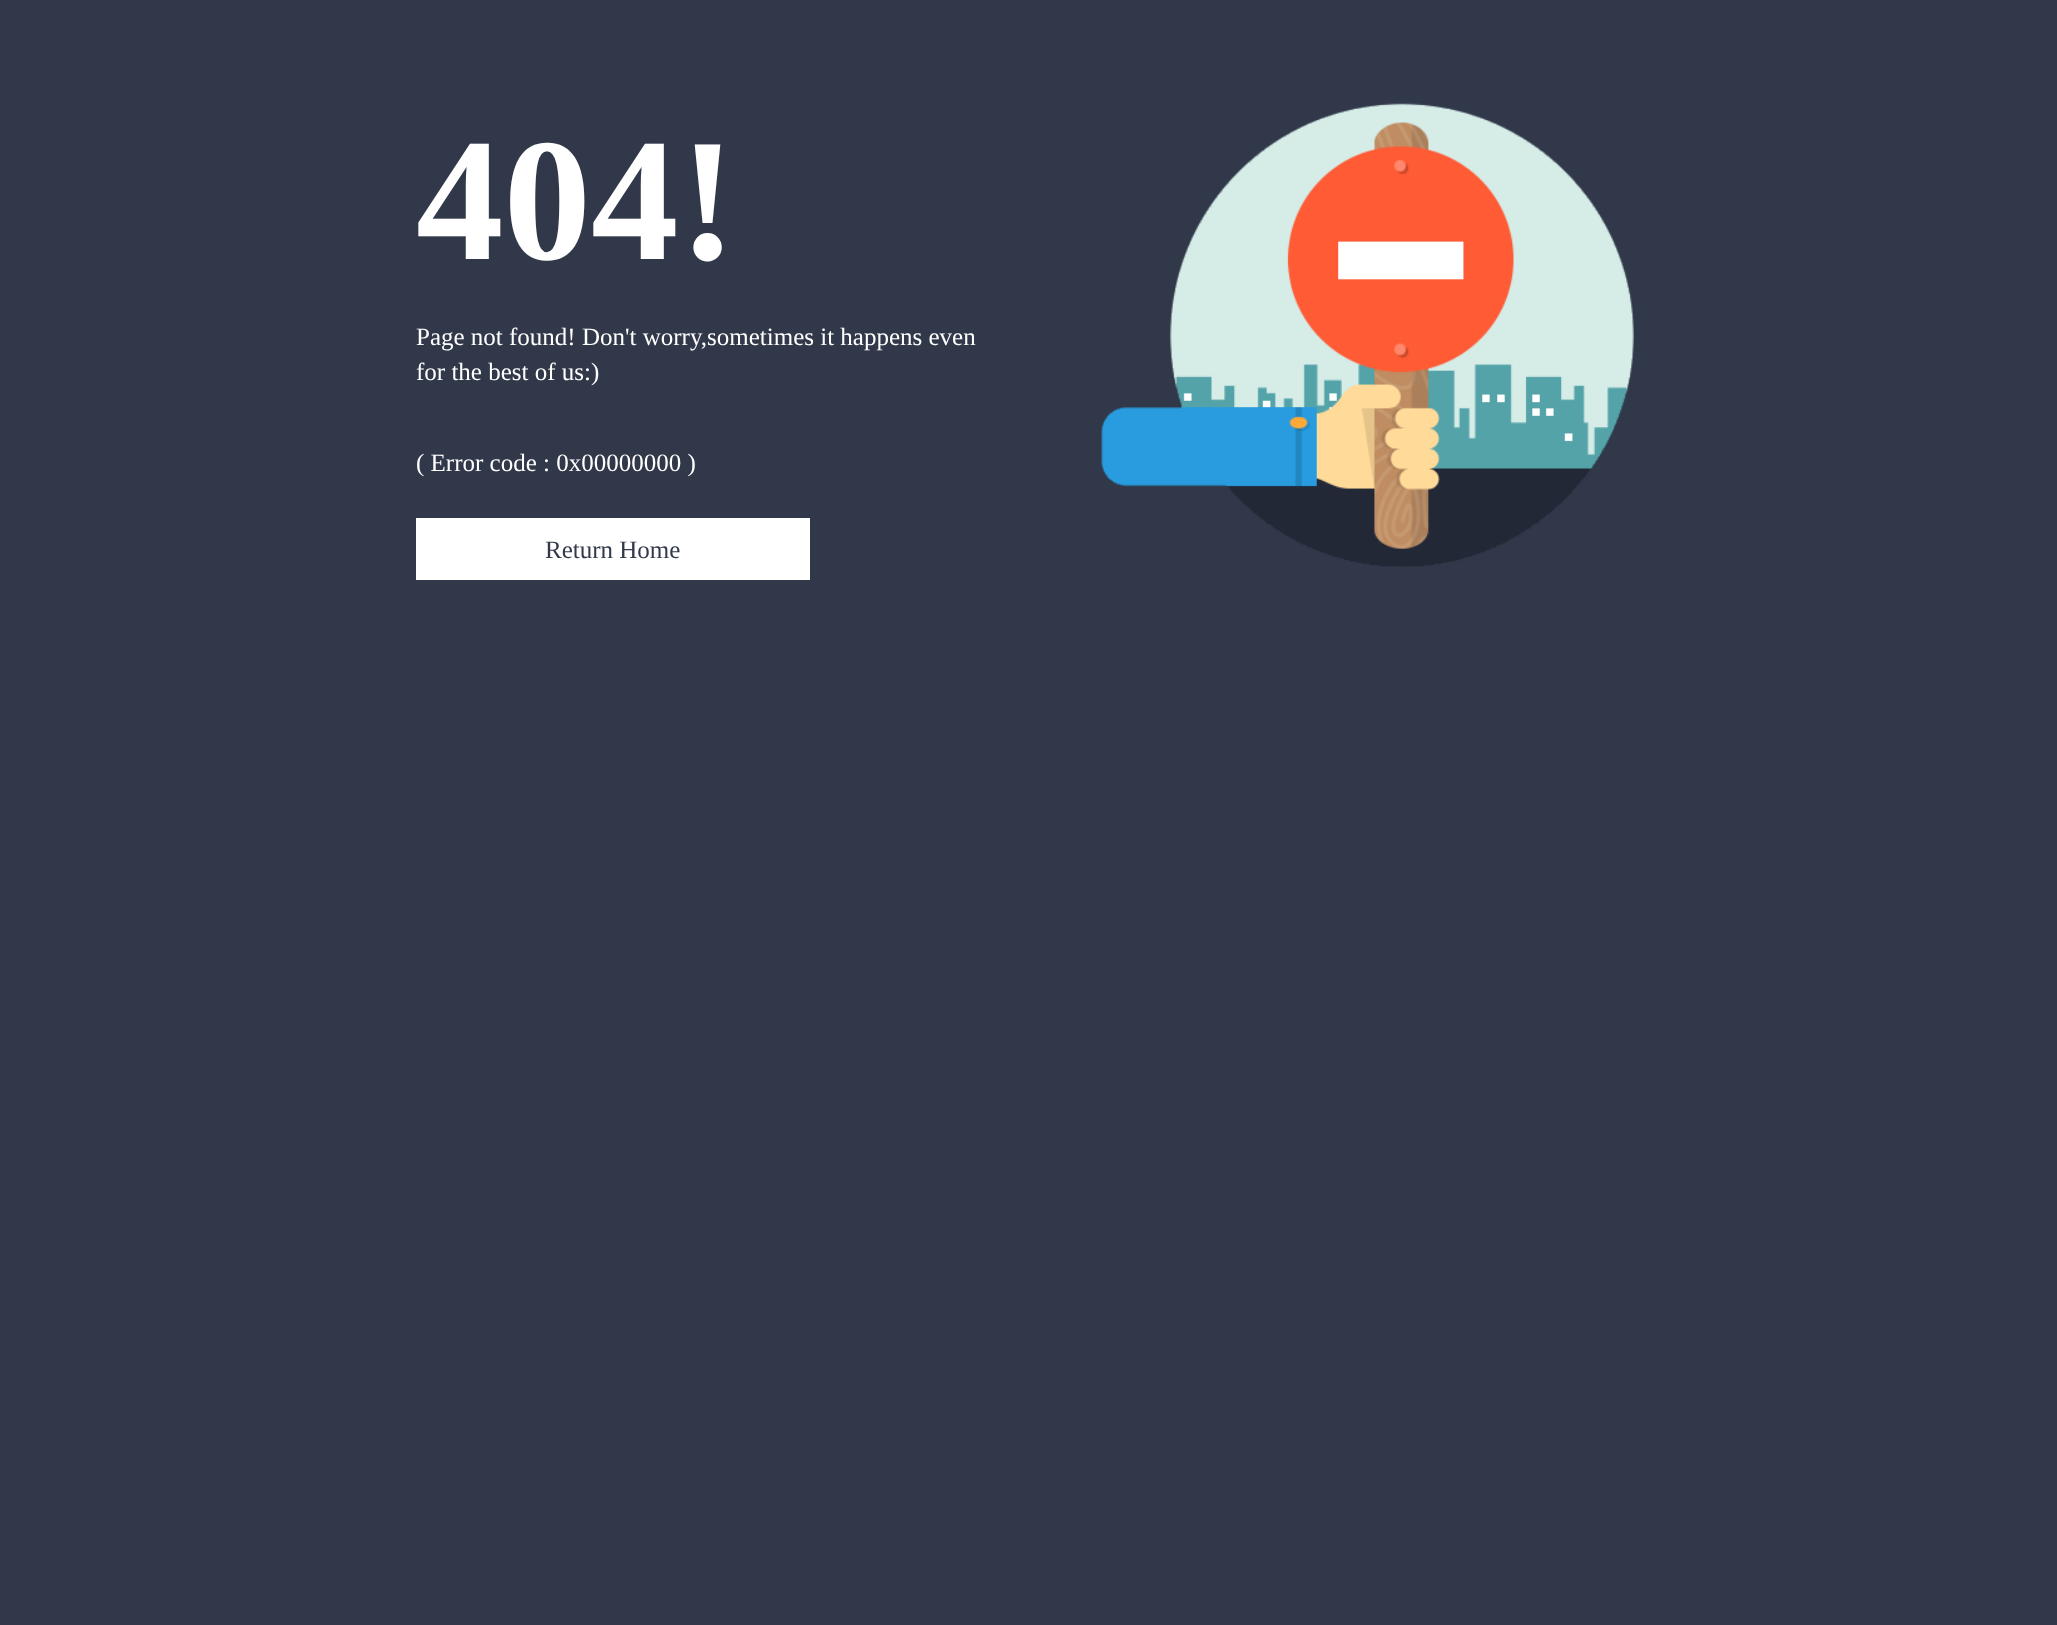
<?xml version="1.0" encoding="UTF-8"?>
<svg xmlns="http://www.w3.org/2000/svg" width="2057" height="1625">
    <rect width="100%" height="100%" fill="#313849"/>
    <text x="416" y="259" font-family="Liberation Serif" font-size="175" font-weight="700" fill="#FFFFFF">404!</text>
    <image x="1101" y="103" width="533" height="464" href="img_01.png"/>
    <text font-family="Liberation Serif" font-size="25" fill="#FFFFFF">
        <tspan x="416" y="345">Page not found! Don't worry,sometimes it happens even</tspan>
        <tspan x="416" y="380">for the best of us:)</tspan>
    </text>
    <text x="416" y="471" font-family="Liberation Serif" font-size="25" fill="#FFFFFF">( Error code : 0x00000000 )</text>
    <rect x="416" y="518" width="394" height="62" fill="#FFFFFF"/>
    <text x="545" y="558" font-family="Liberation Serif" font-size="25" fill="#313849">Return Home</text>
</svg>
